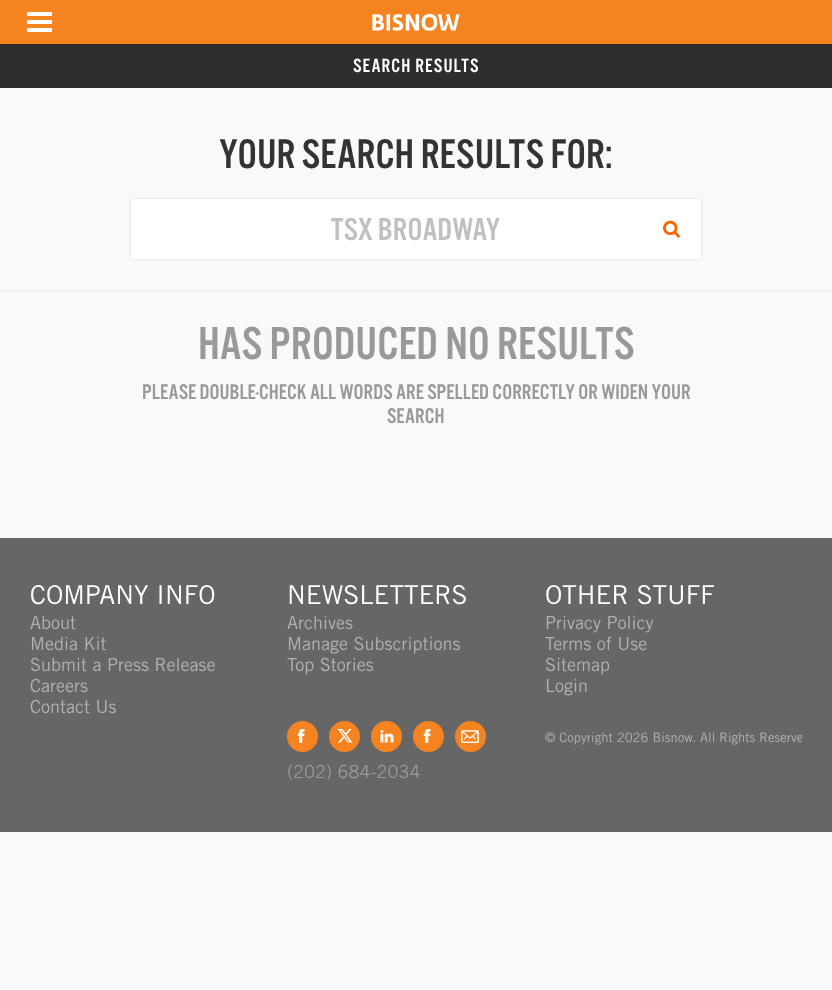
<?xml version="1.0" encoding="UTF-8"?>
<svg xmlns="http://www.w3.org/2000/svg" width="832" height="990">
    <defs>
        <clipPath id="clip1"><rect x="30" y="717" width="772" height="75"/></clipPath>
    </defs>
    <rect width="100%" height="100%" fill="#F8F9FA"/>
    <rect x="0" y="0" width="832" height="44" fill="#F58320"/>
    <image x="27" y="12" width="25" height="20" href="img_01.png"/>
    <image x="372" y="14" width="88" height="17" href="img_02.png"/>
    <rect x="0" y="44" width="832" height="44" fill="#2D2D2D"/>
    <text x="353" y="72" font-family="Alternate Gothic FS" font-size="20" letter-spacing="1" fill="#FFFFFF">SEARCH RESULTS</text>
    <text x="219" y="168" font-family="Alternate Gothic FS" font-size="43" fill="#333333">YOUR SEARCH RESULTS FOR:</text>
    <rect x="130.5" y="198.5" width="571" height="61" fill="#FFFFFF" stroke="#ECECEC"/>
    <text x="331" y="240" font-family="Alternate Gothic FS" font-size="33" fill="#C0C0C0">TSX BROADWAY</text>
    <image x="663" y="220" width="17" height="18" href="img_03.png"/>
    <rect x="0" y="290" width="832" height="1" fill="#ECECEC"/>
    <text x="198" y="359" font-family="Alternate Gothic FS" font-size="48" fill="#999999">HAS PRODUCED NO RESULTS</text>
    <text x="142" y="399" font-family="Alternate Gothic FS" font-size="22" fill="#999999">PLEASE DOUBLE-CHECK ALL WORDS ARE SPELLED CORRECTLY OR WIDEN YOUR</text>
    <text x="387" y="423" font-family="Alternate Gothic FS" font-size="22" fill="#999999">SEARCH</text>
    <rect x="0" y="538" width="832" height="294" fill="#666666"/>
    <text x="30" y="604" font-family="Trade Gothic" font-size="26" fill="#FFFFFF">COMPANY INFO</text>
    <text font-family="Trade Gothic" font-size="18" fill="#B1B1B1">
        <tspan x="30" y="629">About</tspan>
        <tspan x="30" y="650">Media Kit</tspan>
        <tspan x="30" y="671">Submit a Press Release</tspan>
        <tspan x="30" y="692">Careers</tspan>
        <tspan x="30" y="713">Contact Us</tspan>
    </text>
    <text x="287" y="604" font-family="Trade Gothic" font-size="26" fill="#FFFFFF">NEWSLETTERS</text>
    <text font-family="Trade Gothic" font-size="18" fill="#B1B1B1">
        <tspan x="287" y="629">Archives</tspan>
        <tspan x="287" y="650">Manage Subscriptions</tspan>
        <tspan x="287" y="671">Top Stories</tspan>
    </text>
    <text x="545" y="604" font-family="Trade Gothic" font-size="26" fill="#FFFFFF">OTHER STUFF</text>
    <text font-family="Trade Gothic" font-size="18" fill="#B1B1B1">
        <tspan x="545" y="629">Privacy Policy</tspan>
        <tspan x="545" y="650">Terms of Use</tspan>
        <tspan x="545" y="671">Sitemap</tspan>
        <tspan x="545" y="692">Login</tspan>
    </text>
    <g clip-path="url(#clip1)">
        <text x="545" y="742" font-family="Trade Gothic" font-size="13" fill="#B1B1B1">© Copyright 2026 Bisnow. All Rights Reserve</text>
    </g>
    <circle cx="302.5" cy="736.5" r="15.5" fill="#F58320"/>
    <image x="297" y="729" width="8" height="14" href="img_04.png"/>
    <circle cx="344.5" cy="736.5" r="15.5" fill="#F58320"/>
    <image x="337" y="729" width="16" height="14" href="img_05.png"/>
    <circle cx="386.5" cy="736.5" r="15.5" fill="#F58320"/>
    <image x="380" y="729" width="14" height="14" href="img_06.png"/>
    <circle cx="428.5" cy="736.5" r="15.5" fill="#F58320"/>
    <image x="423" y="729" width="8" height="14" href="img_04.png"/>
    <circle cx="470.5" cy="736.5" r="15.5" fill="#F58320"/>
    <image x="461" y="730" width="18" height="13" href="img_07.png"/>
    <text x="287" y="778" font-family="Trade Gothic" font-size="18" fill="#999999">(202) 684-2034</text>
</svg>
